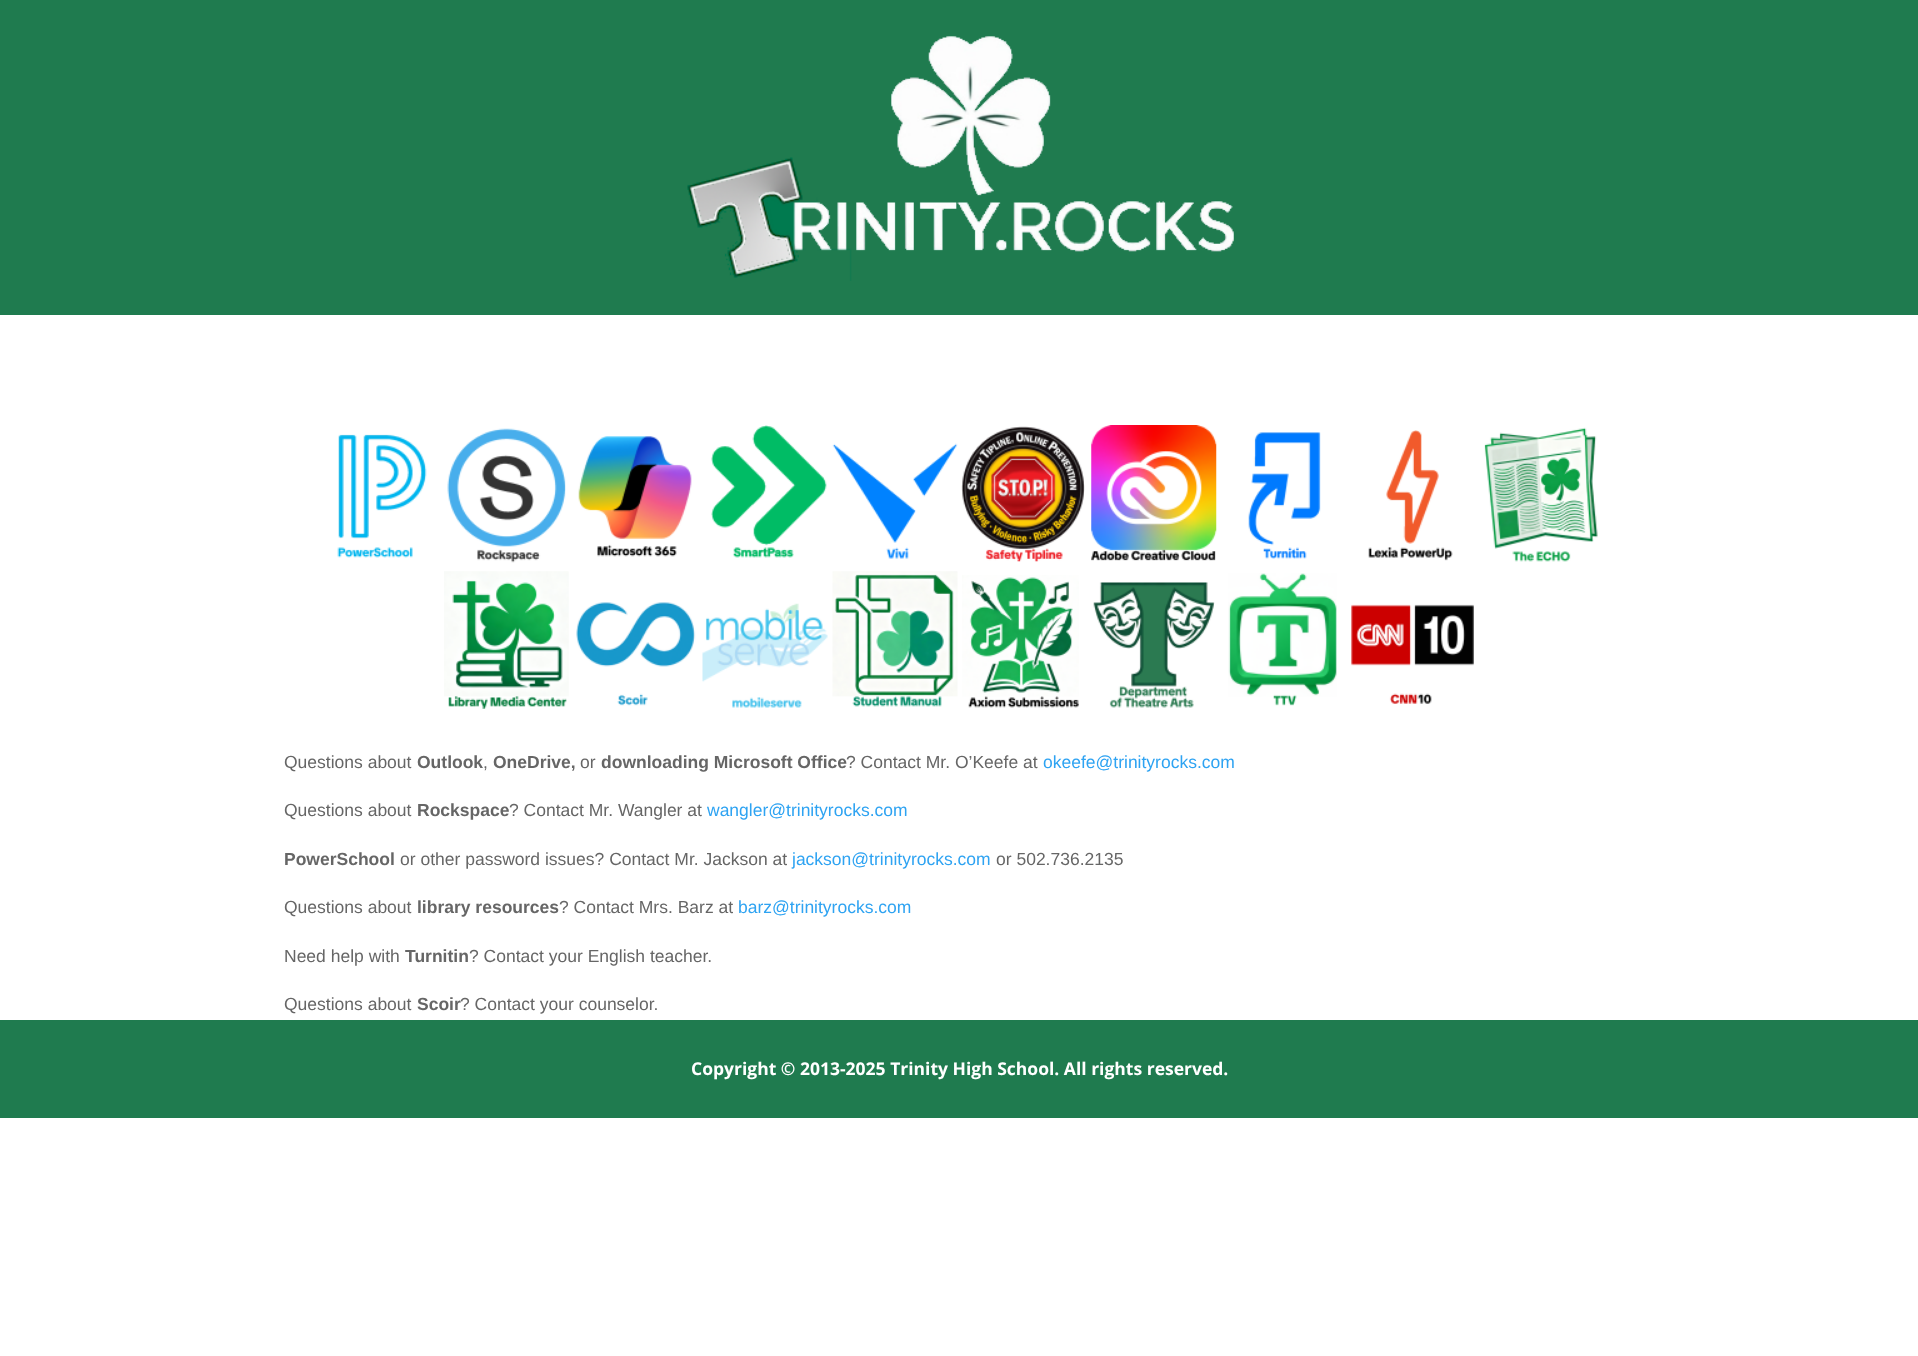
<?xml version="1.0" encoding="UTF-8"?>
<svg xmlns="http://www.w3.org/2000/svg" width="1918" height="1356">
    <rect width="100%" height="100%" fill="#FFFFFF"/>
    <rect x="0" y="0" width="1918" height="315" fill="#1F7B4F"/>
    <image x="687" y="36" width="547" height="245" href="img_01.png"/>
    <image x="337" y="434" width="90" height="124" href="img_02.png"/>
    <image x="447" y="428" width="119" height="135" href="img_03.png"/>
    <image x="578" y="436" width="114" height="121" href="img_04.png"/>
    <image x="711" y="425" width="116" height="133" href="img_05.png"/>
    <image x="832" y="443" width="126" height="116" href="img_06.png"/>
    <image x="961" y="426" width="124" height="136" href="img_07.png"/>
    <image x="1091" y="425" width="126" height="136" href="img_08.png"/>
    <image x="1248" y="432" width="73" height="127" href="img_09.png"/>
    <image x="1368" y="430" width="85" height="131" href="img_10.png"/>
    <image x="1484" y="427" width="114" height="135" href="img_11.png"/>
    <image x="444" y="571" width="125" height="138" href="img_12.png"/>
    <image x="576" y="602" width="120" height="104" href="img_13.png"/>
    <image x="702" y="603" width="126" height="105" href="img_14.png"/>
    <image x="832" y="571" width="126" height="136" href="img_15.png"/>
    <image x="962" y="575" width="117" height="133" href="img_16.png"/>
    <image x="1093" y="582" width="122" height="126" href="img_17.png"/>
    <image x="1228" y="573" width="109" height="133" href="img_18.png"/>
    <image x="1351" y="604" width="123" height="100" href="img_19.png"/>
    <text x="284" y="768" font-family="Liberation Sans" font-size="17.5" fill="#666666">Questions about</text>
    <text x="417" y="768" font-family="Liberation Sans" font-size="17.5" font-weight="700" fill="#666666">Outlook</text>
    <text x="483" y="768" font-family="Liberation Sans" font-size="17.5" fill="#666666">,</text>
    <text x="493" y="768" font-family="Liberation Sans" font-size="17.5" font-weight="700" fill="#666666">OneDrive,</text>
    <text x="580" y="768" font-family="Liberation Sans" font-size="17.5" fill="#666666">or</text>
    <text x="601" y="768" font-family="Liberation Sans" font-size="17.5" font-weight="700" fill="#666666">downloading Microsoft Office</text>
    <text x="846" y="768" font-family="Liberation Sans" font-size="17.5" fill="#666666">? Contact Mr. O’Keefe at</text>
    <text x="1043" y="768" font-family="Liberation Sans" font-size="17.5" fill="#2EA3F2">okeefe@trinityrocks.com</text>
    <text x="284" y="816" font-family="Liberation Sans" font-size="17.5" fill="#666666">Questions about</text>
    <text x="417" y="816" font-family="Liberation Sans" font-size="17.5" font-weight="700" fill="#666666">Rockspace</text>
    <text x="509" y="816" font-family="Liberation Sans" font-size="17.5" fill="#666666">? Contact Mr. Wangler at</text>
    <text x="707" y="816" font-family="Liberation Sans" font-size="17.5" fill="#2EA3F2">wangler@trinityrocks.com</text>
    <text x="284" y="865" font-family="Liberation Sans" font-size="17.5" font-weight="700" fill="#666666">PowerSchool</text>
    <text x="400" y="865" font-family="Liberation Sans" font-size="17.5" fill="#666666">or other password issues? Contact Mr. Jackson at</text>
    <text x="792" y="865" font-family="Liberation Sans" font-size="17.5" fill="#2EA3F2">jackson@trinityrocks.com</text>
    <text x="996" y="865" font-family="Liberation Sans" font-size="17.5" fill="#666666">or 502.736.2135</text>
    <text x="284" y="913" font-family="Liberation Sans" font-size="17.5" fill="#666666">Questions about</text>
    <text x="417" y="913" font-family="Liberation Sans" font-size="17.5" font-weight="700" fill="#666666">library resources</text>
    <text x="559" y="913" font-family="Liberation Sans" font-size="17.5" fill="#666666">? Contact Mrs. Barz at</text>
    <text x="738" y="913" font-family="Liberation Sans" font-size="17.5" fill="#2EA3F2">barz@trinityrocks.com</text>
    <text x="284" y="962" font-family="Liberation Sans" font-size="17.5" fill="#666666">Need help with</text>
    <text x="405" y="962" font-family="Liberation Sans" font-size="17.5" font-weight="700" fill="#666666">Turnitin</text>
    <text x="469" y="962" font-family="Liberation Sans" font-size="17.5" fill="#666666">? Contact your English teacher.</text>
    <text x="284" y="1010" font-family="Liberation Sans" font-size="17.5" fill="#666666">Questions about</text>
    <text x="417" y="1010" font-family="Liberation Sans" font-size="17.5" font-weight="700" fill="#666666">Scoir</text>
    <text x="460" y="1010" font-family="Liberation Sans" font-size="17.5" fill="#666666">? Contact your counselor.</text>
    <rect x="0" y="1020" width="1918" height="98" fill="#1F7B4F"/>
    <text x="691" y="1075" font-family="Open Sans" font-size="17.5" font-weight="700" fill="#FFFFFF">Copyright © 2013-2025 Trinity High School. All rights reserved.</text>
</svg>
